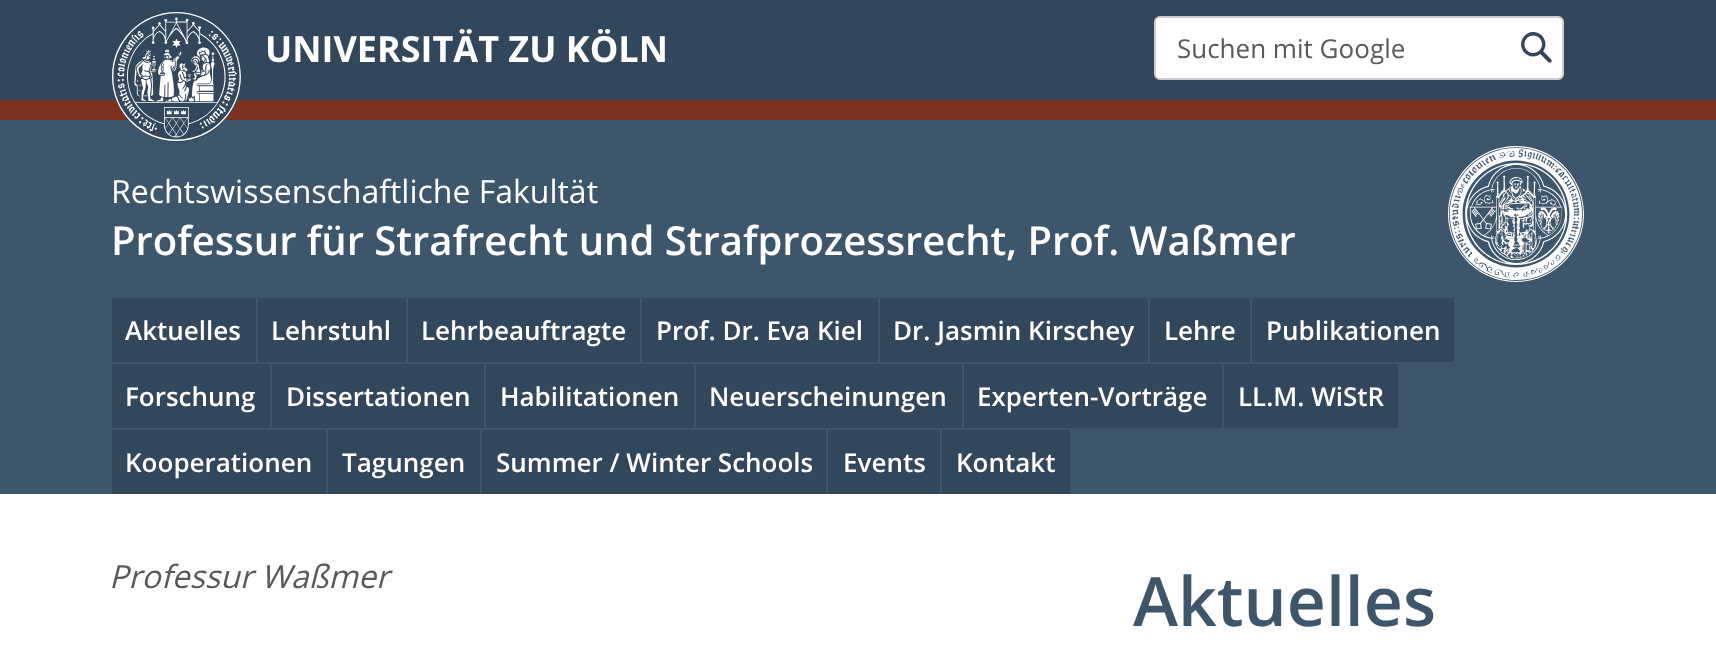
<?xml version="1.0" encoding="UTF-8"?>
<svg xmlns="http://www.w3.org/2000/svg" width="1716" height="652">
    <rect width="100%" height="100%" fill="#FFFFFF"/>
    <rect x="0" y="120" width="1716" height="374" fill="#3E566C"/>
    <rect x="0" y="0" width="1716" height="100" fill="#32475B"/>
    <rect x="0" y="100" width="1716" height="20" fill="#7D321F"/>
    <circle cx="177" cy="77" r="65" fill="#32475B"/>
    <image x="112" y="12" width="129" height="129" href="img_01.png"/>
    <text x="265" y="62" font-family="Open Sans" font-size="36" font-weight="700" fill="#FFFFFF">UNIVERSITÄT ZU KÖLN</text>
    <rect x="1155" y="17" width="408" height="62" rx="5" fill="#FFFFFF" stroke="#CCCCCC" stroke-width="2"/>
    <text x="1177" y="58" font-family="Open Sans" font-size="26" fill="#58595B">Suchen mit Google</text>
    <image x="1521" y="32" width="31" height="31" href="img_02.png"/>
    <text x="111" y="203" font-family="Open Sans" font-size="32" fill="#FFFFFF">Rechtswissenschaftliche Fakultät</text>
    <text x="111" y="255" font-family="Open Sans" font-size="40" font-weight="600" fill="#FFFFFF">Professur für Strafrecht und Strafprozessrecht, Prof. Waßmer</text>
    <image x="1448" y="146" width="136" height="136" href="img_03.png"/>
    <rect x="112" y="298" width="144" height="64" fill="#32475B"/>
    <text x="125" y="340" font-family="Open Sans" font-size="26" font-weight="600" fill="#FFFFFF">Aktuelles</text>
    <rect x="258" y="298" width="148" height="64" fill="#32475B"/>
    <text x="271" y="340" font-family="Open Sans" font-size="26" font-weight="600" fill="#FFFFFF">Lehrstuhl</text>
    <rect x="408" y="298" width="232" height="64" fill="#32475B"/>
    <text x="421" y="340" font-family="Open Sans" font-size="26" font-weight="600" fill="#FFFFFF">Lehrbeauftragte</text>
    <rect x="642" y="298" width="236" height="64" fill="#32475B"/>
    <text x="656" y="340" font-family="Open Sans" font-size="26" font-weight="600" fill="#FFFFFF">Prof. Dr. Eva Kiel</text>
    <rect x="880" y="298" width="268" height="64" fill="#32475B"/>
    <text x="893" y="340" font-family="Open Sans" font-size="26" font-weight="600" fill="#FFFFFF">Dr. Jasmin Kirschey</text>
    <rect x="1150" y="298" width="100" height="64" fill="#32475B"/>
    <text x="1164" y="340" font-family="Open Sans" font-size="26" font-weight="600" fill="#FFFFFF">Lehre</text>
    <rect x="1252" y="298" width="202" height="64" fill="#32475B"/>
    <text x="1266" y="340" font-family="Open Sans" font-size="26" font-weight="600" fill="#FFFFFF">Publikationen</text>
    <rect x="112" y="364" width="158" height="64" fill="#32475B"/>
    <text x="125" y="406" font-family="Open Sans" font-size="26" font-weight="600" fill="#FFFFFF">Forschung</text>
    <rect x="272" y="364" width="212" height="64" fill="#32475B"/>
    <text x="286" y="406" font-family="Open Sans" font-size="26" font-weight="600" fill="#FFFFFF">Dissertationen</text>
    <rect x="486" y="364" width="208" height="64" fill="#32475B"/>
    <text x="500" y="406" font-family="Open Sans" font-size="26" font-weight="600" fill="#FFFFFF">Habilitationen</text>
    <rect x="696" y="364" width="266" height="64" fill="#32475B"/>
    <text x="709" y="406" font-family="Open Sans" font-size="26" font-weight="600" fill="#FFFFFF">Neuerscheinungen</text>
    <rect x="964" y="364" width="258" height="64" fill="#32475B"/>
    <text x="977" y="406" font-family="Open Sans" font-size="26" font-weight="600" fill="#FFFFFF">Experten-Vorträge</text>
    <rect x="1224" y="364" width="174" height="64" fill="#32475B"/>
    <text x="1238" y="406" font-family="Open Sans" font-size="26" font-weight="600" fill="#FFFFFF">LL.M. WiStR</text>
    <rect x="112" y="430" width="214" height="64" fill="#32475B"/>
    <text x="125" y="472" font-family="Open Sans" font-size="26" font-weight="600" fill="#FFFFFF">Kooperationen</text>
    <rect x="328" y="430" width="152" height="64" fill="#32475B"/>
    <text x="342" y="472" font-family="Open Sans" font-size="26" font-weight="600" fill="#FFFFFF">Tagungen</text>
    <rect x="482" y="430" width="344" height="64" fill="#32475B"/>
    <text x="496" y="472" font-family="Open Sans" font-size="26" font-weight="600" fill="#FFFFFF">Summer / Winter Schools</text>
    <rect x="828" y="430" width="112" height="64" fill="#32475B"/>
    <text x="843" y="472" font-family="Open Sans" font-size="26" font-weight="600" fill="#FFFFFF">Events</text>
    <rect x="942" y="430" width="128" height="64" fill="#32475B"/>
    <text x="956" y="472" font-family="Open Sans" font-size="26" font-weight="600" fill="#FFFFFF">Kontakt</text>
    <text x="109" y="588" font-family="Open Sans" font-size="32" font-style="italic" fill="#58595B">Professur Waßmer</text>
    <text x="1133" y="626" font-family="Open Sans" font-size="68" font-weight="600" fill="#3E566C">Aktuelles</text>
</svg>
